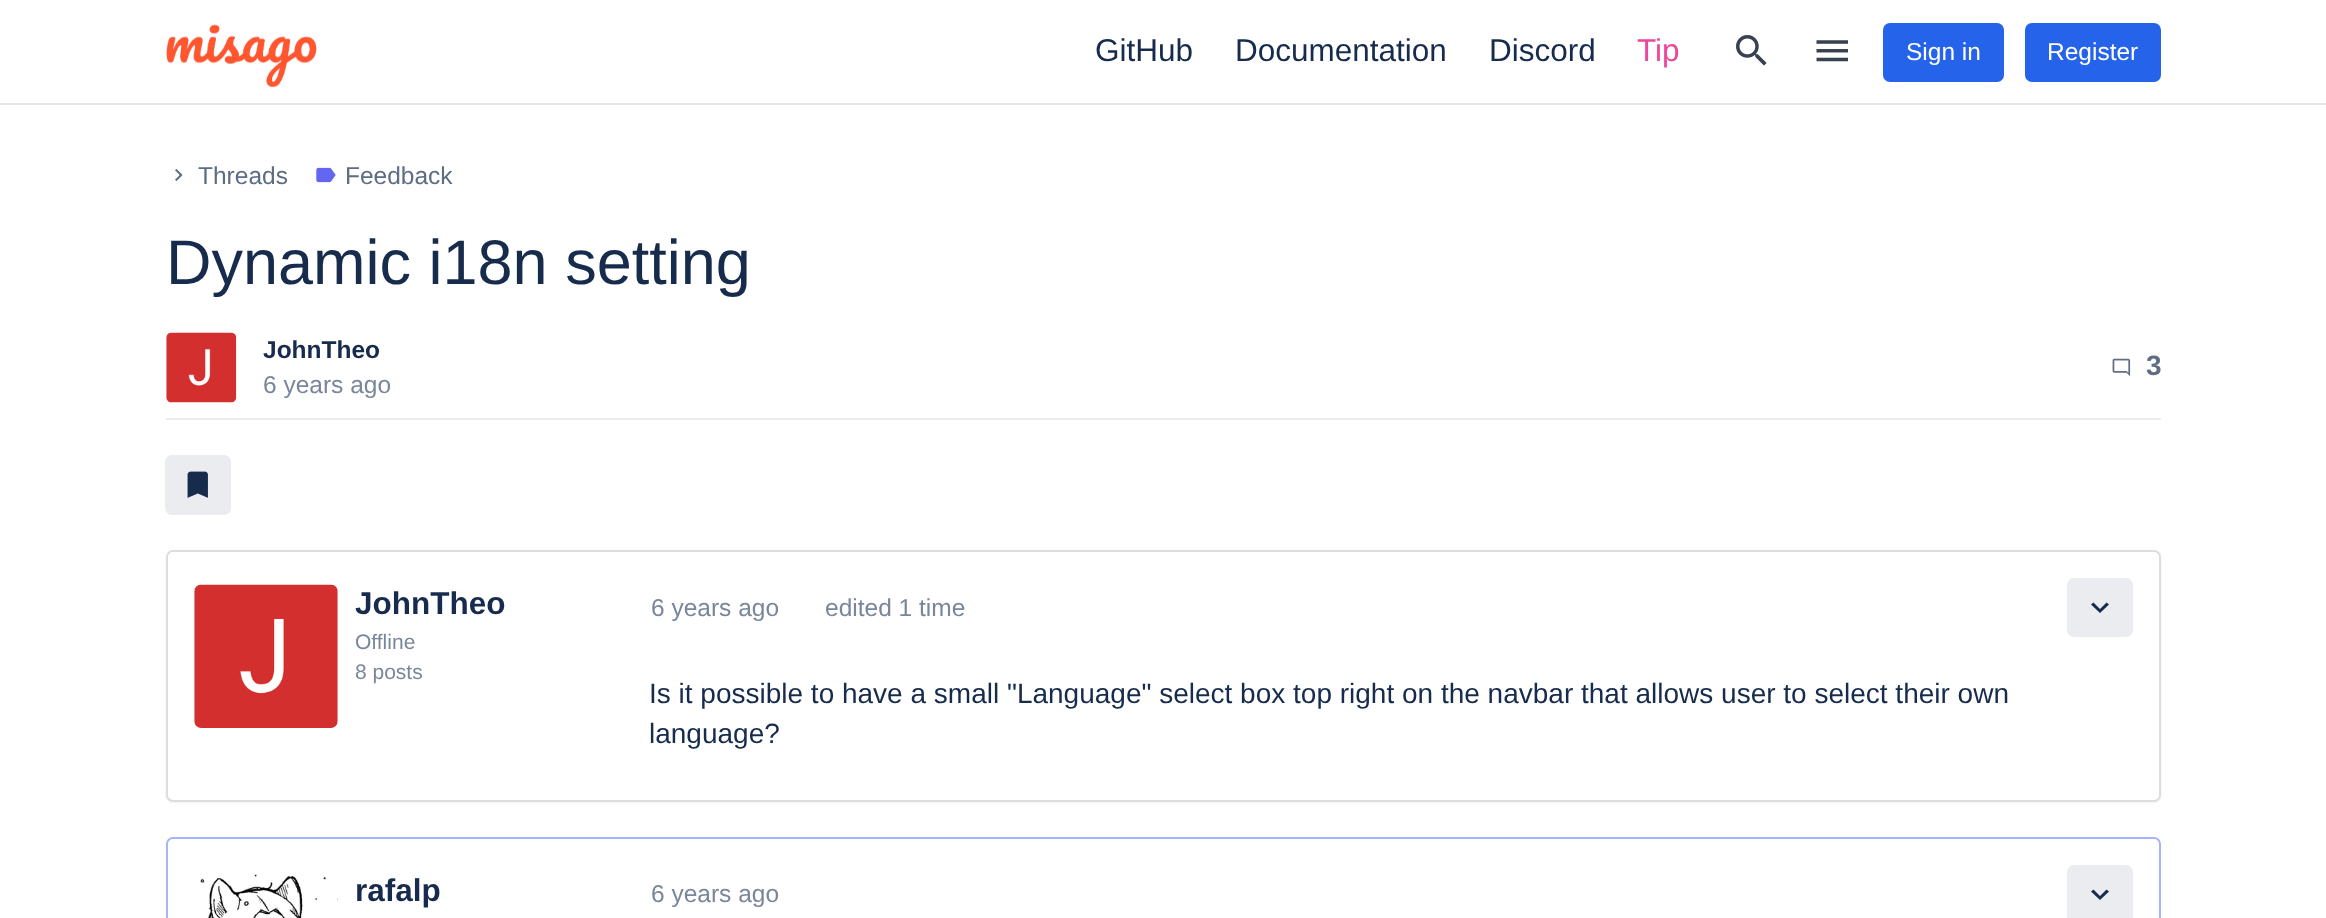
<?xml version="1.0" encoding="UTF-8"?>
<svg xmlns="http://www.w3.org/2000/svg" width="2326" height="918">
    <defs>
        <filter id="blur1" x="-50%" y="-200%" width="200%" height="500%"><feGaussianBlur stdDeviation="1"/></filter>
    </defs>
    <rect width="100%" height="100%" fill="#FFFFFF"/>
    <rect x="0" y="103" width="2326" height="2" fill="#E5E7EB"/>
    <image x="166" y="24" width="151" height="64" href="img_01.png"/>
    <text x="1095" y="61" font-family="Liberation Sans" font-size="31.5" fill="#172B4D">GitHub</text>
    <text x="1235" y="61" font-family="Liberation Sans" font-size="31.5" fill="#172B4D">Documentation</text>
    <text x="1489" y="61" font-family="Liberation Sans" font-size="31.5" fill="#172B4D">Discord</text>
    <text x="1637" y="61" font-family="Liberation Sans" font-size="31.5" fill="#EC4899">Tip</text>
    <image x="1736" y="35" width="31" height="31" href="img_02.png"/>
    <image x="1816" y="40" width="32" height="22" href="img_03.png"/>
    <rect x="1884" y="24" width="119" height="57" rx="6" fill="#2563EB" stroke="#2563EB" stroke-width="2"/>
    <text x="1906" y="60" font-family="Liberation Sans" font-size="24.5" fill="#FFFFFF">Sign in</text>
    <rect x="2026" y="24" width="134" height="57" rx="6" fill="#2563EB" stroke="#2563EB" stroke-width="2"/>
    <text x="2047" y="60" font-family="Liberation Sans" font-size="24.5" fill="#FFFFFF">Register</text>
    <rect x="166" y="418" width="1995" height="2" fill="#EBECF0"/>
    <image x="175" y="169" width="8" height="12" href="img_04.png"/>
    <text x="198" y="184" font-family="Liberation Sans" font-size="24.5" fill="#5E6C84">Threads</text>
    <image x="316" y="167" width="20" height="16" href="img_05.png"/>
    <text x="345" y="184" font-family="Liberation Sans" font-size="24.5" fill="#5E6C84">Feedback</text>
    <text x="166" y="284" font-family="Liberation Sans" font-size="63" fill="#172B4D">Dynamic i18n setting</text>
    <image x="166" y="332" width="71" height="71" href="img_06.png"/>
    <text x="263" y="358" font-family="Liberation Sans" font-size="24.5" font-weight="700" fill="#172B4D">JohnTheo</text>
    <text x="263" y="393" font-family="Liberation Sans" font-size="24.5" fill="#7A869A">6 years ago</text>
    <image x="2112" y="358" width="19" height="18" href="img_07.png"/>
    <text x="2146" y="375" font-family="Liberation Sans" font-size="28" font-weight="700" fill="#5E6C84">3</text>
    <rect x="166" y="456" width="64" height="58" rx="6" fill="#EBECF0" stroke="#EBECF0" stroke-width="2"/>
    <image x="187" y="471" width="21" height="27" href="img_08.png"/>
    <rect x="166" y="551" width="1995" height="252" rx="7" fill="#000000" fill-opacity="0.05" filter="url(#blur1)"/>
    <rect x="167" y="551" width="1993" height="250" rx="6" fill="#FFFFFF" stroke="#DDDDDD" stroke-width="2"/>
    <image x="194" y="584" width="144" height="144" href="img_09.png"/>
    <text x="355" y="614" font-family="Liberation Sans" font-size="31.5" font-weight="700" fill="#172B4D">JohnTheo</text>
    <text font-family="Liberation Sans" font-size="21" fill="#7A869A">
        <tspan x="355" y="649">Offline</tspan>
        <tspan x="355" y="679">8 posts</tspan>
    </text>
    <text x="651" y="616" font-family="Liberation Sans" font-size="24.5" fill="#7A869A">6 years ago</text>
    <text x="825" y="616" font-family="Liberation Sans" font-size="24.5" fill="#7A869A">edited 1 time</text>
    <rect x="2068" y="579" width="64" height="57" rx="6" fill="#EBECF0" stroke="#EBECF0" stroke-width="2"/>
    <path d="M 2106.5 602.5 L 2109 604.5 L 2100 613 L 2091 604.5 L 2093.5 602.5 L 2100 609 Z" fill="#172B4D"/>
    <text font-family="Liberation Sans" font-size="28" fill="#172B4D">
        <tspan x="649" y="703">Is it possible to have a small "Language" select box top right on the navbar that allows user to select their own</tspan>
        <tspan x="649" y="743">language?</tspan>
    </text>
    <rect x="167" y="838" width="1993" height="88" rx="6" fill="none" stroke="#A5B4FC" stroke-width="2"/>
    <image x="200" y="874" width="138" height="44" href="img_10.png"/>
    <text x="355" y="901" font-family="Liberation Sans" font-size="31.5" font-weight="700" fill="#172B4D">rafalp</text>
    <text x="651" y="902" font-family="Liberation Sans" font-size="24.5" fill="#7A869A">6 years ago</text>
    <rect x="2068" y="866" width="64" height="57" rx="6" fill="#EBECF0" stroke="#EBECF0" stroke-width="2"/>
    <path d="M 2106.5 889.5 L 2109 891.5 L 2100 900 L 2091 891.5 L 2093.5 889.5 L 2100 896 Z" fill="#172B4D"/>
</svg>
